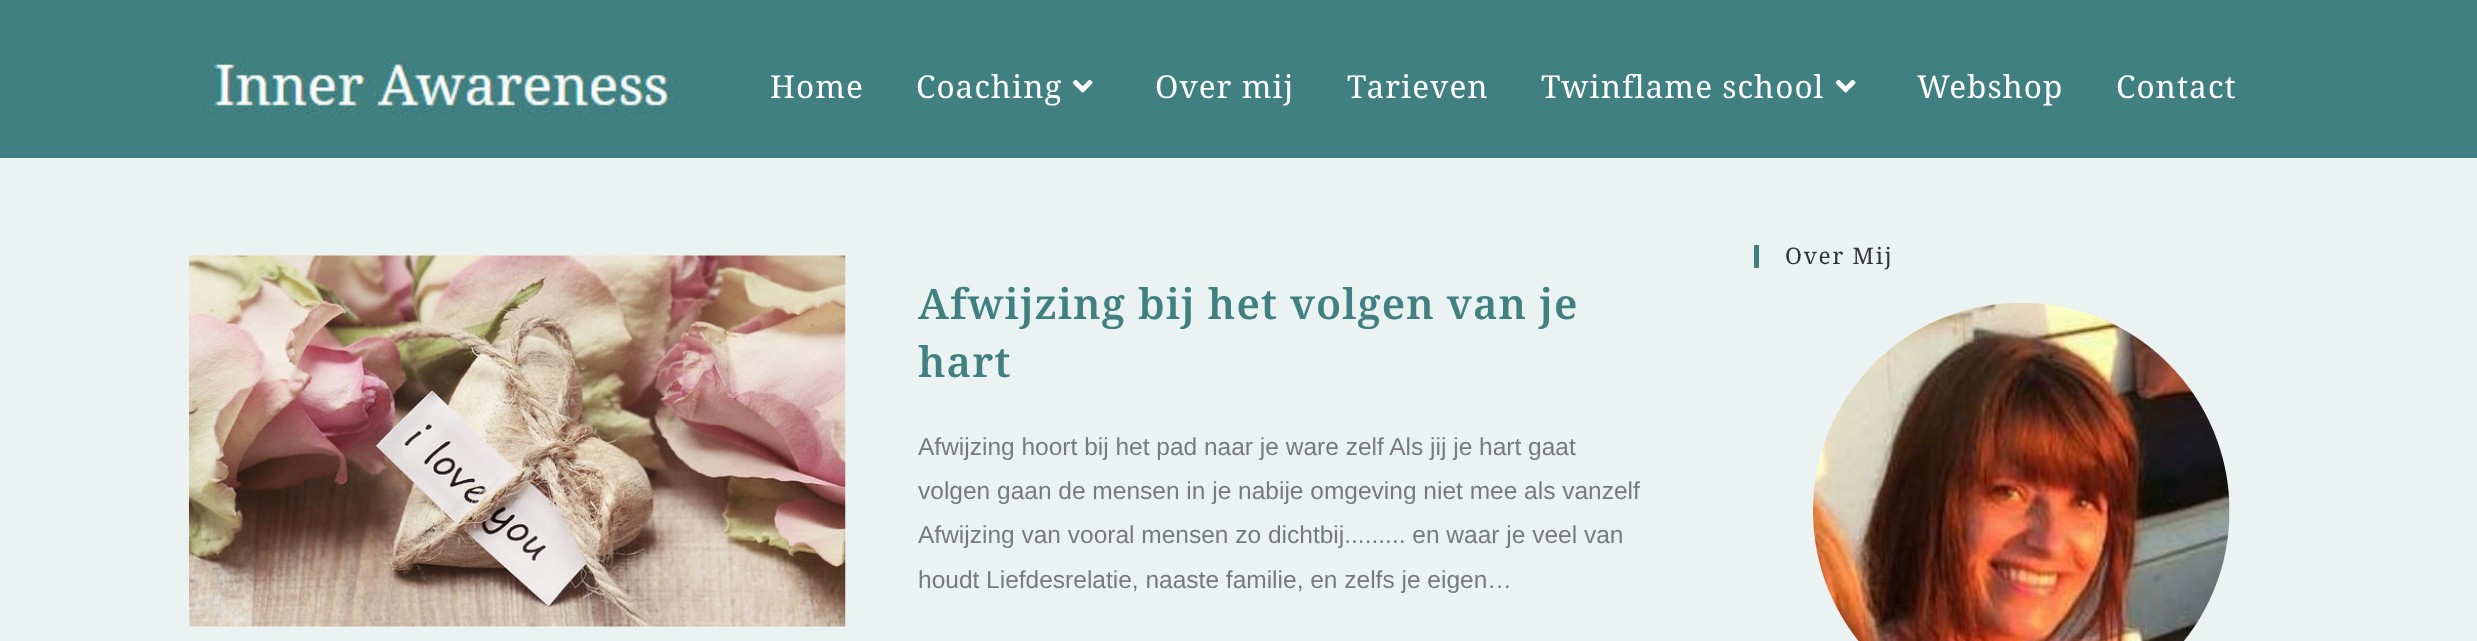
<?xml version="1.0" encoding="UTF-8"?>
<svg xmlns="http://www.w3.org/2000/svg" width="2477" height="641">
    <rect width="100%" height="100%" fill="#EBF2F2"/>
    <rect x="0" y="0" width="2477" height="158" fill="#408080"/>
    <image x="203" y="59" width="476" height="57" href="img_01.png"/>
    <text x="770" y="98" font-family="Noto Serif" font-size="31.5" letter-spacing="1.05" fill="#FFFFFF">Home</text>
    <text x="916" y="98" font-family="Noto Serif" font-size="31.5" letter-spacing="1.05" fill="#FFFFFF">Coaching</text>
    <image x="1072" y="79" width="21" height="14" href="img_02.png"/>
    <text x="1155" y="98" font-family="Noto Serif" font-size="31.5" letter-spacing="1.05" fill="#FFFFFF">Over mij</text>
    <text x="1347" y="98" font-family="Noto Serif" font-size="31.5" letter-spacing="1.05" fill="#FFFFFF">Tarieven</text>
    <text x="1541" y="98" font-family="Noto Serif" font-size="31.5" letter-spacing="1.05" fill="#FFFFFF">Twinflame school</text>
    <image x="1835" y="79" width="21" height="14" href="img_02.png"/>
    <text x="1917" y="98" font-family="Noto Serif" font-size="31.5" letter-spacing="1.05" fill="#FFFFFF">Webshop</text>
    <text x="2116" y="98" font-family="Noto Serif" font-size="31.5" letter-spacing="1.05" fill="#FFFFFF">Contact</text>
    <rect x="1754" y="245" width="5" height="23" fill="#408080"/>
    <text x="1785" y="264" font-family="Noto Serif" font-size="22.75" letter-spacing="1.75" fill="#333333">Over Mij</text>
    <image x="1813" y="303" width="417" height="338" href="img_03.png"/>
    <rect x="1699" y="245" width="2" height="396" fill="#F1F1F1"/>
    <image x="189" y="255" width="657" height="372" href="img_04.png"/>
    <text font-family="Noto Serif" font-size="42" font-weight="600" letter-spacing="1.05" fill="#408080">
        <tspan x="918" y="319">Afwijzing bij het volgen van je</tspan>
        <tspan x="918" y="377">hart</tspan>
    </text>
    <text font-family="Liberation Sans" font-size="24.5" fill="#7A7A7A">
        <tspan x="918" y="455">Afwijzing hoort bij het pad naar je ware zelf Als jij je hart gaat</tspan>
        <tspan x="918" y="499">volgen gaan de mensen in je nabije omgeving niet mee als vanzelf</tspan>
        <tspan x="918" y="543">Afwijzing van vooral mensen zo dichtbij......... en waar je veel van</tspan>
        <tspan x="918" y="588">houdt Liefdesrelatie, naaste familie, en zelfs je eigen…</tspan>
    </text>
</svg>
